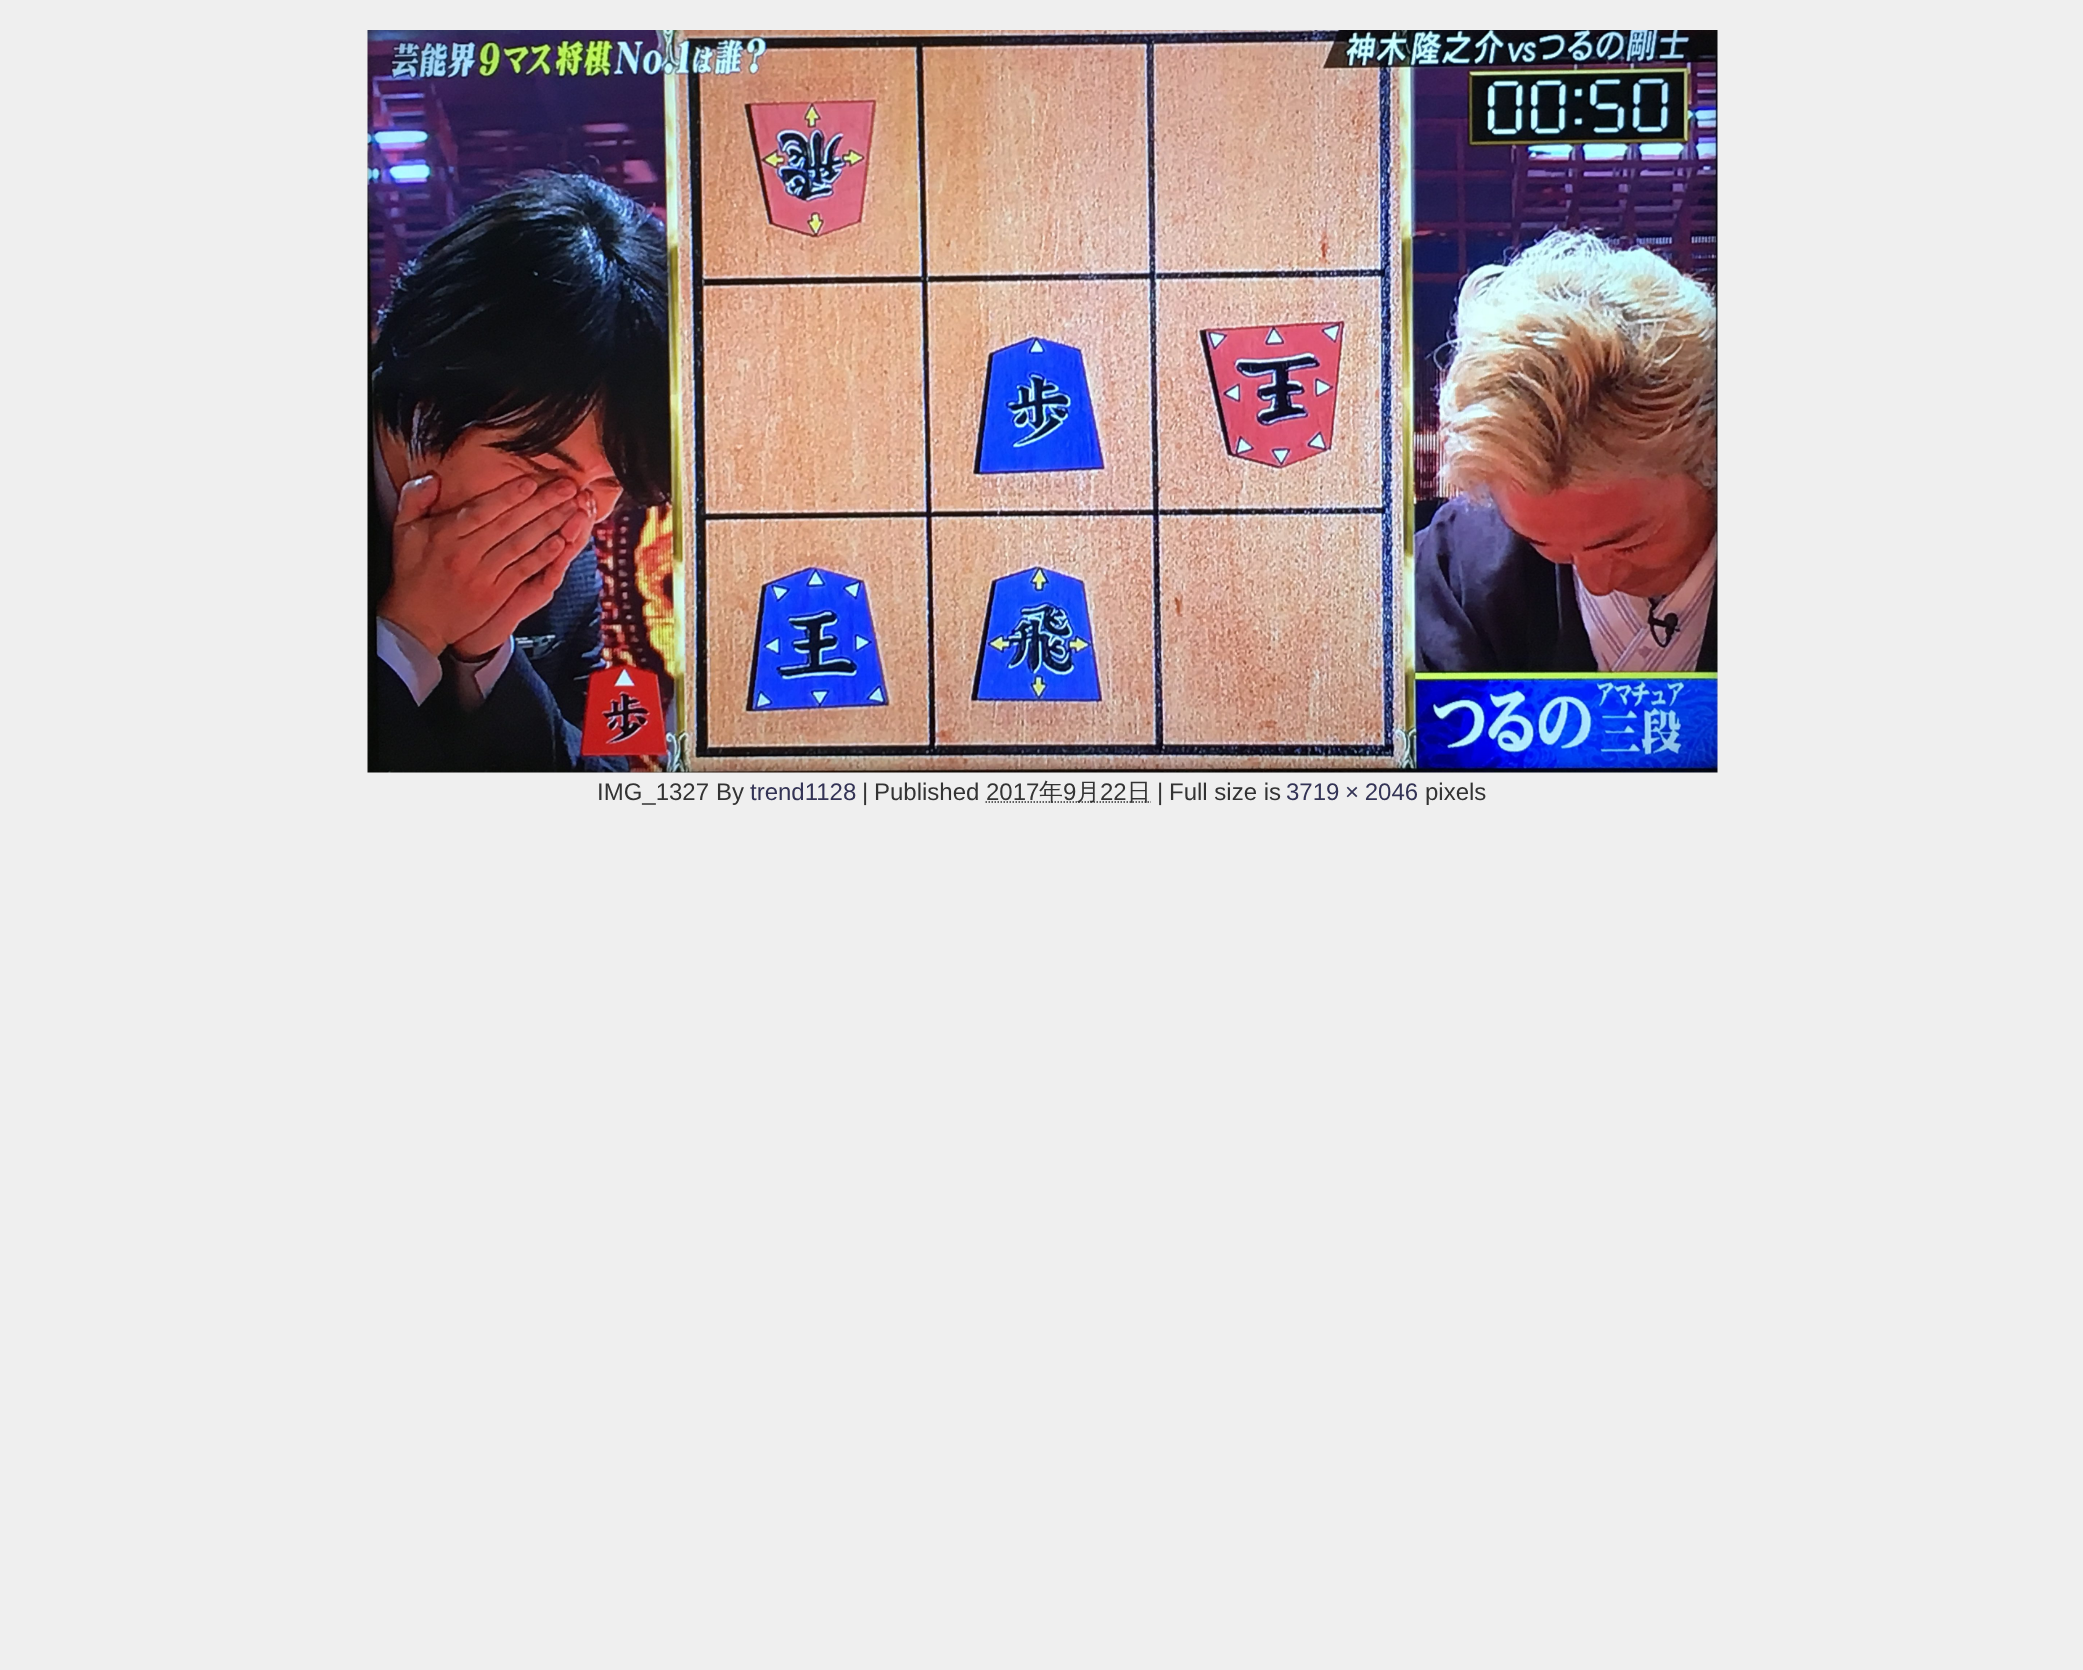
<?xml version="1.0" encoding="UTF-8"?>
<svg xmlns="http://www.w3.org/2000/svg" width="2083" height="1670">
    <rect width="100%" height="100%" fill="#EFEFEF"/>
    <image x="367" y="30" width="1351" height="743" href="img_01.png"/>
    <text x="597" y="800" font-family="Liberation Sans" font-size="24" fill="#333333">IMG_1327</text>
    <text x="716" y="800" font-family="Liberation Sans" font-size="24" fill="#333333">By</text>
    <text x="750" y="800" font-family="Liberation Sans" font-size="24" fill="#333355">trend1128</text>
    <text x="862" y="800" font-family="Liberation Sans" font-size="24" fill="#333333">|</text>
    <text x="874" y="800" font-family="Liberation Sans" font-size="24" fill="#333333">Published</text>
    <text x="986" y="800" font-family="Liberation Sans" font-size="24" fill="#333333">2017</text>
    <path d="M 985.5 802 H 1151" fill="none" stroke="#333333" stroke-width="1.5" stroke-dasharray="1.5 1.5"/>
    <text x="1039" y="800" font-family="WenQuanYi Zen Hei" font-size="24" font-weight="500" fill="#333333">年</text>
    <text x="1063" y="800" font-family="Liberation Sans" font-size="24" fill="#333333">9</text>
    <text x="1076" y="800" font-family="WenQuanYi Zen Hei" font-size="24" font-weight="500" fill="#333333">月</text>
    <text x="1100" y="800" font-family="Liberation Sans" font-size="24" fill="#333333">22</text>
    <text x="1127" y="800" font-family="WenQuanYi Zen Hei" font-size="24" font-weight="500" fill="#333333">日</text>
    <text x="1157" y="800" font-family="Liberation Sans" font-size="24" fill="#333333">|</text>
    <text x="1169" y="800" font-family="Liberation Sans" font-size="24" fill="#333333">Full size is</text>
    <text x="1286" y="800" word-spacing="-1" font-family="Liberation Sans" font-size="24" fill="#333355">3719 × 2046</text>
    <text x="1425" y="800" font-family="Liberation Sans" font-size="24" fill="#333333">pixels</text>
</svg>
